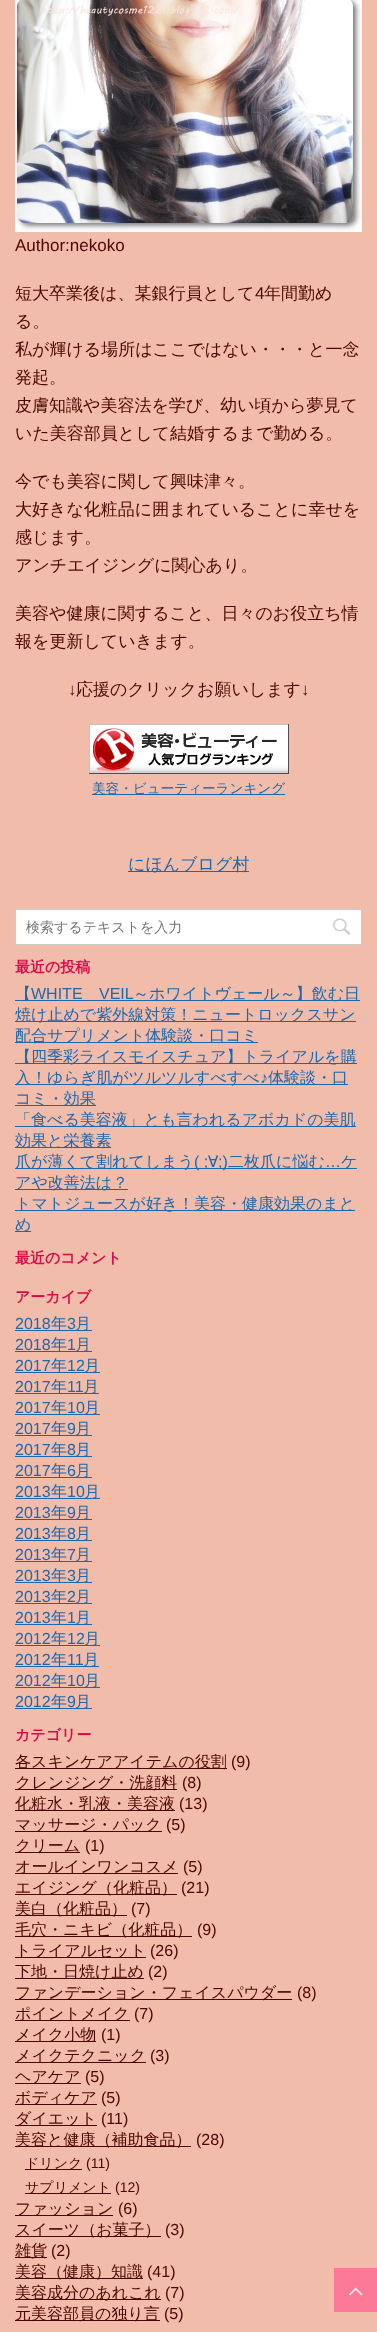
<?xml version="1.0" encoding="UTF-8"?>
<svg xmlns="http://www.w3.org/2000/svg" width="377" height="2332">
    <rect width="100%" height="100%" fill="#F2BCAB"/>
    <image x="15" y="0" width="347" height="232" href="img_01.png"/>
    <text x="15" y="251" font-family="Liberation Sans" font-size="17" fill="#4C0601">Author:nekoko</text>
    <text x="15" y="299" font-family="WenQuanYi Zen Hei" font-size="17" font-weight="500" fill="#4C0601">短大卒業後は、某銀行員として</text>
    <text x="255" y="299" font-family="Liberation Sans" font-size="17" fill="#4C0601">4</text>
    <text x="264" y="299" font-family="WenQuanYi Zen Hei" font-size="17" font-weight="500" fill="#4C0601">年間勤め</text>
    <text font-family="WenQuanYi Zen Hei" font-size="17" font-weight="500" fill="#4C0601">
        <tspan x="15" y="327">る。</tspan>
        <tspan x="15" y="355">私が輝ける場所はここではない・・・と一念</tspan>
        <tspan x="15" y="383">発起。</tspan>
        <tspan x="15" y="411">皮膚知識や美容法を学び、幼い頃から夢見て</tspan>
        <tspan x="15" y="439">いた美容部員として結婚するまで勤める。</tspan>
    </text>
    <text font-family="WenQuanYi Zen Hei" font-size="17" font-weight="500" fill="#4C0601">
        <tspan x="15" y="487">今でも美容に関して興味津々。</tspan>
        <tspan x="15" y="515">大好きな化粧品に囲まれていることに幸せを</tspan>
        <tspan x="15" y="543">感じます。</tspan>
        <tspan x="15" y="571">アンチエイジングに関心あり。</tspan>
    </text>
    <text font-family="WenQuanYi Zen Hei" font-size="17" font-weight="500" fill="#4C0601">
        <tspan x="15" y="619">美容や健康に関すること、日々のお役立ち情</tspan>
        <tspan x="15" y="647">報を更新していきます。</tspan>
    </text>
    <text x="68" y="695" font-family="Liberation Sans" font-size="17" fill="#4C0601">↓</text>
    <text x="76" y="695" font-family="WenQuanYi Zen Hei" font-size="17" font-weight="500" fill="#4C0601">応援のクリックお願いします</text>
    <text x="301" y="695" font-family="Liberation Sans" font-size="17" fill="#4C0601">↓</text>
    <image x="89" y="724" width="200" height="50" href="img_02.png"/>
    <rect x="92" y="794" width="193" height="1" fill="#1B69AD"/>
    <text x="92" y="793" font-family="WenQuanYi Zen Hei" font-size="13.6" font-weight="500" fill="#1B69AD">美容・ビューティーランキング</text>
    <rect x="128" y="871" width="121" height="1" fill="#1B69AD"/>
    <text x="128" y="870" font-family="WenQuanYi Zen Hei" font-size="17" font-weight="500" fill="#1B69AD">にほんブログ村</text>
    <rect x="15.5" y="909.5" width="346" height="35" fill="none" stroke="#CCCCCC"/>
    <rect x="16" y="910" width="345" height="34" fill="#FFFFFF"/>
    <text x="26" y="932" font-family="WenQuanYi Zen Hei" font-size="14" font-weight="500" fill="#757575">検索するテキストを入力</text>
    <image x="333" y="918" width="18" height="17" href="img_03.png"/>
    <text x="15" y="972" font-family="WenQuanYi Zen Hei" font-size="15" font-weight="700" fill="#DB0847">最近の投稿</text>
    <rect x="15" y="1000" width="345" height="1" fill="#1B69AD"/>
    <text x="15" y="999" font-family="WenQuanYi Zen Hei" font-size="16" font-weight="500" fill="#1B69AD">【</text>
    <text x="31" y="999" font-family="Liberation Sans" font-size="16" fill="#1B69AD">WHITE</text>
    <text x="99" y="999" font-family="Liberation Sans" font-size="16" fill="#1B69AD">VEIL</text>
    <text x="133" y="999" font-family="WenQuanYi Zen Hei" font-size="16" font-weight="500" fill="#1B69AD">～ホワイトヴェール～】飲む日</text>
    <rect x="15" y="1021" width="341" height="1" fill="#1B69AD"/>
    <text x="15" y="1020" font-family="WenQuanYi Zen Hei" font-size="16" font-weight="500" fill="#1B69AD">焼け止めで紫外線対策！ニュートロックスサン</text>
    <rect x="15" y="1042" width="243" height="1" fill="#1B69AD"/>
    <text x="15" y="1041" font-family="WenQuanYi Zen Hei" font-size="16" font-weight="500" fill="#1B69AD">配合サプリメント体験談・口コミ</text>
    <rect x="15" y="1063" width="342" height="1" fill="#1B69AD"/>
    <text x="15" y="1062" font-family="WenQuanYi Zen Hei" font-size="16" font-weight="500" fill="#1B69AD">【四季彩ライスモイスチュア】トライアルを購</text>
    <rect x="15" y="1084" width="333" height="1" fill="#1B69AD"/>
    <text x="15" y="1083" font-family="WenQuanYi Zen Hei" font-size="16" font-weight="500" fill="#1B69AD">入！ゆらぎ肌がツルツルすべすべ</text>
    <text x="260" y="1083" font-family="Liberation Sans" font-size="16" fill="#1B69AD">♪</text>
    <text x="268" y="1083" font-family="WenQuanYi Zen Hei" font-size="16" font-weight="500" fill="#1B69AD">体験談・口</text>
    <rect x="15" y="1105" width="81" height="1" fill="#1B69AD"/>
    <text x="15" y="1104" font-family="WenQuanYi Zen Hei" font-size="16" font-weight="500" fill="#1B69AD">コミ・効果</text>
    <rect x="15" y="1126" width="341" height="1" fill="#1B69AD"/>
    <text x="15" y="1125" font-family="WenQuanYi Zen Hei" font-size="16" font-weight="500" fill="#1B69AD">「食べる美容液」とも言われるアボカドの美肌</text>
    <rect x="15" y="1147" width="96" height="1" fill="#1B69AD"/>
    <text x="15" y="1146" font-family="WenQuanYi Zen Hei" font-size="16" font-weight="500" fill="#1B69AD">効果と栄養素</text>
    <rect x="15" y="1168" width="342" height="1" fill="#1B69AD"/>
    <text x="15" y="1167" font-family="WenQuanYi Zen Hei" font-size="16" font-weight="500" fill="#1B69AD">爪が薄くて割れてしまう</text>
    <text x="194" y="1167" font-family="Liberation Sans" font-size="16" fill="#1B69AD">( ;</text>
    <text x="208" y="1167" font-family="WenQuanYi Zen Hei" font-size="16" font-weight="500" fill="#1B69AD">∀</text>
    <text x="218" y="1167" font-family="Liberation Sans" font-size="16" fill="#1B69AD">;)</text>
    <text x="228" y="1167" font-family="WenQuanYi Zen Hei" font-size="16" font-weight="500" fill="#1B69AD">二枚爪に悩む</text>
    <text x="325" y="1167" font-family="Liberation Sans" font-size="16" fill="#1B69AD">…</text>
    <text x="341" y="1167" font-family="WenQuanYi Zen Hei" font-size="16" font-weight="500" fill="#1B69AD">ケ</text>
    <rect x="15" y="1189" width="113" height="1" fill="#1B69AD"/>
    <text x="15" y="1188" font-family="WenQuanYi Zen Hei" font-size="16" font-weight="500" fill="#1B69AD">アや改善法は？</text>
    <rect x="15" y="1210" width="340" height="1" fill="#1B69AD"/>
    <text x="15" y="1209" font-family="WenQuanYi Zen Hei" font-size="16" font-weight="500" fill="#1B69AD">トマトジュースが好き！美容・健康効果のまと</text>
    <rect x="15" y="1231" width="16" height="1" fill="#1B69AD"/>
    <text x="15" y="1230" font-family="WenQuanYi Zen Hei" font-size="16" font-weight="500" fill="#1B69AD">め</text>
    <text x="15" y="1263" font-family="WenQuanYi Zen Hei" font-size="15" font-weight="700" fill="#DB0847">最近のコメント</text>
    <text x="15" y="1302" font-family="WenQuanYi Zen Hei" font-size="15" font-weight="700" fill="#DB0847">アーカイブ</text>
    <text x="15" y="1329" font-family="Liberation Sans" font-size="16" fill="#1B69AD">2018</text>
    <rect x="15" y="1330" width="77" height="1" fill="#1B69AD"/>
    <text x="51" y="1329" font-family="WenQuanYi Zen Hei" font-size="16" font-weight="500" fill="#1B69AD">年</text>
    <text x="67" y="1329" font-family="Liberation Sans" font-size="16" fill="#1B69AD">3</text>
    <text x="75" y="1329" font-family="WenQuanYi Zen Hei" font-size="16" font-weight="500" fill="#1B69AD">月</text>
    <text x="15" y="1350" font-family="Liberation Sans" font-size="16" fill="#1B69AD">2018</text>
    <rect x="15" y="1351" width="77" height="1" fill="#1B69AD"/>
    <text x="51" y="1350" font-family="WenQuanYi Zen Hei" font-size="16" font-weight="500" fill="#1B69AD">年</text>
    <text x="67" y="1350" font-family="Liberation Sans" font-size="16" fill="#1B69AD">1</text>
    <text x="75" y="1350" font-family="WenQuanYi Zen Hei" font-size="16" font-weight="500" fill="#1B69AD">月</text>
    <text x="15" y="1371" font-family="Liberation Sans" font-size="16" fill="#1B69AD">2017</text>
    <rect x="15" y="1372" width="85" height="1" fill="#1B69AD"/>
    <text x="51" y="1371" font-family="WenQuanYi Zen Hei" font-size="16" font-weight="500" fill="#1B69AD">年</text>
    <text x="67" y="1371" font-family="Liberation Sans" font-size="16" fill="#1B69AD">12</text>
    <text x="84" y="1371" font-family="WenQuanYi Zen Hei" font-size="16" font-weight="500" fill="#1B69AD">月</text>
    <text x="15" y="1392" font-family="Liberation Sans" font-size="16" fill="#1B69AD">2017</text>
    <rect x="15" y="1393" width="84" height="1" fill="#1B69AD"/>
    <text x="51" y="1392" font-family="WenQuanYi Zen Hei" font-size="16" font-weight="500" fill="#1B69AD">年</text>
    <text x="67" y="1392" font-family="Liberation Sans" font-size="16" fill="#1B69AD">11</text>
    <text x="83" y="1392" font-family="WenQuanYi Zen Hei" font-size="16" font-weight="500" fill="#1B69AD">月</text>
    <text x="15" y="1413" font-family="Liberation Sans" font-size="16" fill="#1B69AD">2017</text>
    <rect x="15" y="1414" width="85" height="1" fill="#1B69AD"/>
    <text x="51" y="1413" font-family="WenQuanYi Zen Hei" font-size="16" font-weight="500" fill="#1B69AD">年</text>
    <text x="67" y="1413" font-family="Liberation Sans" font-size="16" fill="#1B69AD">10</text>
    <text x="84" y="1413" font-family="WenQuanYi Zen Hei" font-size="16" font-weight="500" fill="#1B69AD">月</text>
    <text x="15" y="1434" font-family="Liberation Sans" font-size="16" fill="#1B69AD">2017</text>
    <rect x="15" y="1435" width="77" height="1" fill="#1B69AD"/>
    <text x="51" y="1434" font-family="WenQuanYi Zen Hei" font-size="16" font-weight="500" fill="#1B69AD">年</text>
    <text x="67" y="1434" font-family="Liberation Sans" font-size="16" fill="#1B69AD">9</text>
    <text x="75" y="1434" font-family="WenQuanYi Zen Hei" font-size="16" font-weight="500" fill="#1B69AD">月</text>
    <text x="15" y="1455" font-family="Liberation Sans" font-size="16" fill="#1B69AD">2017</text>
    <rect x="15" y="1456" width="77" height="1" fill="#1B69AD"/>
    <text x="51" y="1455" font-family="WenQuanYi Zen Hei" font-size="16" font-weight="500" fill="#1B69AD">年</text>
    <text x="67" y="1455" font-family="Liberation Sans" font-size="16" fill="#1B69AD">8</text>
    <text x="75" y="1455" font-family="WenQuanYi Zen Hei" font-size="16" font-weight="500" fill="#1B69AD">月</text>
    <text x="15" y="1476" font-family="Liberation Sans" font-size="16" fill="#1B69AD">2017</text>
    <rect x="15" y="1477" width="77" height="1" fill="#1B69AD"/>
    <text x="51" y="1476" font-family="WenQuanYi Zen Hei" font-size="16" font-weight="500" fill="#1B69AD">年</text>
    <text x="67" y="1476" font-family="Liberation Sans" font-size="16" fill="#1B69AD">6</text>
    <text x="75" y="1476" font-family="WenQuanYi Zen Hei" font-size="16" font-weight="500" fill="#1B69AD">月</text>
    <text x="15" y="1497" font-family="Liberation Sans" font-size="16" fill="#1B69AD">2013</text>
    <rect x="15" y="1498" width="85" height="1" fill="#1B69AD"/>
    <text x="51" y="1497" font-family="WenQuanYi Zen Hei" font-size="16" font-weight="500" fill="#1B69AD">年</text>
    <text x="67" y="1497" font-family="Liberation Sans" font-size="16" fill="#1B69AD">10</text>
    <text x="84" y="1497" font-family="WenQuanYi Zen Hei" font-size="16" font-weight="500" fill="#1B69AD">月</text>
    <text x="15" y="1518" font-family="Liberation Sans" font-size="16" fill="#1B69AD">2013</text>
    <rect x="15" y="1519" width="77" height="1" fill="#1B69AD"/>
    <text x="51" y="1518" font-family="WenQuanYi Zen Hei" font-size="16" font-weight="500" fill="#1B69AD">年</text>
    <text x="67" y="1518" font-family="Liberation Sans" font-size="16" fill="#1B69AD">9</text>
    <text x="75" y="1518" font-family="WenQuanYi Zen Hei" font-size="16" font-weight="500" fill="#1B69AD">月</text>
    <text x="15" y="1539" font-family="Liberation Sans" font-size="16" fill="#1B69AD">2013</text>
    <rect x="15" y="1540" width="77" height="1" fill="#1B69AD"/>
    <text x="51" y="1539" font-family="WenQuanYi Zen Hei" font-size="16" font-weight="500" fill="#1B69AD">年</text>
    <text x="67" y="1539" font-family="Liberation Sans" font-size="16" fill="#1B69AD">8</text>
    <text x="75" y="1539" font-family="WenQuanYi Zen Hei" font-size="16" font-weight="500" fill="#1B69AD">月</text>
    <text x="15" y="1560" font-family="Liberation Sans" font-size="16" fill="#1B69AD">2013</text>
    <rect x="15" y="1561" width="77" height="1" fill="#1B69AD"/>
    <text x="51" y="1560" font-family="WenQuanYi Zen Hei" font-size="16" font-weight="500" fill="#1B69AD">年</text>
    <text x="67" y="1560" font-family="Liberation Sans" font-size="16" fill="#1B69AD">7</text>
    <text x="75" y="1560" font-family="WenQuanYi Zen Hei" font-size="16" font-weight="500" fill="#1B69AD">月</text>
    <text x="15" y="1581" font-family="Liberation Sans" font-size="16" fill="#1B69AD">2013</text>
    <rect x="15" y="1582" width="77" height="1" fill="#1B69AD"/>
    <text x="51" y="1581" font-family="WenQuanYi Zen Hei" font-size="16" font-weight="500" fill="#1B69AD">年</text>
    <text x="67" y="1581" font-family="Liberation Sans" font-size="16" fill="#1B69AD">3</text>
    <text x="75" y="1581" font-family="WenQuanYi Zen Hei" font-size="16" font-weight="500" fill="#1B69AD">月</text>
    <text x="15" y="1602" font-family="Liberation Sans" font-size="16" fill="#1B69AD">2013</text>
    <rect x="15" y="1603" width="77" height="1" fill="#1B69AD"/>
    <text x="51" y="1602" font-family="WenQuanYi Zen Hei" font-size="16" font-weight="500" fill="#1B69AD">年</text>
    <text x="67" y="1602" font-family="Liberation Sans" font-size="16" fill="#1B69AD">2</text>
    <text x="75" y="1602" font-family="WenQuanYi Zen Hei" font-size="16" font-weight="500" fill="#1B69AD">月</text>
    <text x="15" y="1623" font-family="Liberation Sans" font-size="16" fill="#1B69AD">2013</text>
    <rect x="15" y="1624" width="77" height="1" fill="#1B69AD"/>
    <text x="51" y="1623" font-family="WenQuanYi Zen Hei" font-size="16" font-weight="500" fill="#1B69AD">年</text>
    <text x="67" y="1623" font-family="Liberation Sans" font-size="16" fill="#1B69AD">1</text>
    <text x="75" y="1623" font-family="WenQuanYi Zen Hei" font-size="16" font-weight="500" fill="#1B69AD">月</text>
    <text x="15" y="1644" font-family="Liberation Sans" font-size="16" fill="#1B69AD">2012</text>
    <rect x="15" y="1645" width="85" height="1" fill="#1B69AD"/>
    <text x="51" y="1644" font-family="WenQuanYi Zen Hei" font-size="16" font-weight="500" fill="#1B69AD">年</text>
    <text x="67" y="1644" font-family="Liberation Sans" font-size="16" fill="#1B69AD">12</text>
    <text x="84" y="1644" font-family="WenQuanYi Zen Hei" font-size="16" font-weight="500" fill="#1B69AD">月</text>
    <text x="15" y="1665" font-family="Liberation Sans" font-size="16" fill="#1B69AD">2012</text>
    <rect x="15" y="1666" width="84" height="1" fill="#1B69AD"/>
    <text x="51" y="1665" font-family="WenQuanYi Zen Hei" font-size="16" font-weight="500" fill="#1B69AD">年</text>
    <text x="67" y="1665" font-family="Liberation Sans" font-size="16" fill="#1B69AD">11</text>
    <text x="83" y="1665" font-family="WenQuanYi Zen Hei" font-size="16" font-weight="500" fill="#1B69AD">月</text>
    <text x="15" y="1686" font-family="Liberation Sans" font-size="16" fill="#1B69AD">2012</text>
    <rect x="15" y="1687" width="85" height="1" fill="#1B69AD"/>
    <text x="51" y="1686" font-family="WenQuanYi Zen Hei" font-size="16" font-weight="500" fill="#1B69AD">年</text>
    <text x="67" y="1686" font-family="Liberation Sans" font-size="16" fill="#1B69AD">10</text>
    <text x="84" y="1686" font-family="WenQuanYi Zen Hei" font-size="16" font-weight="500" fill="#1B69AD">月</text>
    <text x="15" y="1707" font-family="Liberation Sans" font-size="16" fill="#1B69AD">2012</text>
    <rect x="15" y="1708" width="77" height="1" fill="#1B69AD"/>
    <text x="51" y="1707" font-family="WenQuanYi Zen Hei" font-size="16" font-weight="500" fill="#1B69AD">年</text>
    <text x="67" y="1707" font-family="Liberation Sans" font-size="16" fill="#1B69AD">9</text>
    <text x="75" y="1707" font-family="WenQuanYi Zen Hei" font-size="16" font-weight="500" fill="#1B69AD">月</text>
    <text x="15" y="1740" font-family="WenQuanYi Zen Hei" font-size="15" font-weight="700" fill="#DB0847">カテゴリー</text>
    <rect x="15" y="1768" width="212" height="1" fill="#4C0601"/>
    <text x="15" y="1767" font-family="WenQuanYi Zen Hei" font-size="16" font-weight="500" fill="#4C0601">各スキンケアアイテムの役割</text>
    <text x="231" y="1767" font-family="Liberation Sans" font-size="16" fill="#4C0601">(9)</text>
    <rect x="15" y="1789" width="162" height="1" fill="#4C0601"/>
    <text x="15" y="1788" font-family="WenQuanYi Zen Hei" font-size="16" font-weight="500" fill="#4C0601">クレンジング・洗顔料</text>
    <text x="182" y="1788" font-family="Liberation Sans" font-size="16" fill="#4C0601">(8)</text>
    <rect x="15" y="1810" width="160" height="1" fill="#4C0601"/>
    <text x="15" y="1809" font-family="WenQuanYi Zen Hei" font-size="16" font-weight="500" fill="#4C0601">化粧水・乳液・美容液</text>
    <text x="179" y="1809" font-family="Liberation Sans" font-size="16" fill="#4C0601">(13)</text>
    <rect x="15" y="1831" width="147" height="1" fill="#4C0601"/>
    <text x="15" y="1830" font-family="WenQuanYi Zen Hei" font-size="16" font-weight="500" fill="#4C0601">マッサージ・パック</text>
    <text x="166" y="1830" font-family="Liberation Sans" font-size="16" fill="#4C0601">(5)</text>
    <rect x="15" y="1852" width="65" height="1" fill="#4C0601"/>
    <text x="15" y="1851" font-family="WenQuanYi Zen Hei" font-size="16" font-weight="500" fill="#4C0601">クリーム</text>
    <text x="85" y="1851" font-family="Liberation Sans" font-size="16" fill="#4C0601">(1)</text>
    <rect x="15" y="1873" width="163" height="1" fill="#4C0601"/>
    <text x="15" y="1872" font-family="WenQuanYi Zen Hei" font-size="16" font-weight="500" fill="#4C0601">オールインワンコスメ</text>
    <text x="183" y="1872" font-family="Liberation Sans" font-size="16" fill="#4C0601">(5)</text>
    <rect x="15" y="1894" width="162" height="1" fill="#4C0601"/>
    <text x="15" y="1893" font-family="WenQuanYi Zen Hei" font-size="16" font-weight="500" fill="#4C0601">エイジング（化粧品）</text>
    <text x="181" y="1893" font-family="Liberation Sans" font-size="16" fill="#4C0601">(21)</text>
    <rect x="15" y="1915" width="112" height="1" fill="#4C0601"/>
    <text x="15" y="1914" font-family="WenQuanYi Zen Hei" font-size="16" font-weight="500" fill="#4C0601">美白（化粧品）</text>
    <text x="131" y="1914" font-family="Liberation Sans" font-size="16" fill="#4C0601">(7)</text>
    <rect x="15" y="1936" width="177" height="1" fill="#4C0601"/>
    <text x="15" y="1935" font-family="WenQuanYi Zen Hei" font-size="16" font-weight="500" fill="#4C0601">毛穴・ニキビ（化粧品）</text>
    <text x="197" y="1935" font-family="Liberation Sans" font-size="16" fill="#4C0601">(9)</text>
    <rect x="15" y="1957" width="131" height="1" fill="#4C0601"/>
    <text x="15" y="1956" font-family="WenQuanYi Zen Hei" font-size="16" font-weight="500" fill="#4C0601">トライアルセット</text>
    <text x="150" y="1956" font-family="Liberation Sans" font-size="16" fill="#4C0601">(26)</text>
    <rect x="15" y="1978" width="129" height="1" fill="#4C0601"/>
    <text x="15" y="1977" font-family="WenQuanYi Zen Hei" font-size="16" font-weight="500" fill="#4C0601">下地・日焼け止め</text>
    <text x="148" y="1977" font-family="Liberation Sans" font-size="16" fill="#4C0601">(2)</text>
    <rect x="15" y="1999" width="277" height="1" fill="#4C0601"/>
    <text x="15" y="1998" font-family="WenQuanYi Zen Hei" font-size="16" font-weight="500" fill="#4C0601">ファンデーション・フェイスパウダー</text>
    <text x="297" y="1998" font-family="Liberation Sans" font-size="16" fill="#4C0601">(8)</text>
    <rect x="15" y="2020" width="115" height="1" fill="#4C0601"/>
    <text x="15" y="2019" font-family="WenQuanYi Zen Hei" font-size="16" font-weight="500" fill="#4C0601">ポイントメイク</text>
    <text x="134" y="2019" font-family="Liberation Sans" font-size="16" fill="#4C0601">(7)</text>
    <rect x="15" y="2041" width="81" height="1" fill="#4C0601"/>
    <text x="15" y="2040" font-family="WenQuanYi Zen Hei" font-size="16" font-weight="500" fill="#4C0601">メイク小物</text>
    <text x="101" y="2040" font-family="Liberation Sans" font-size="16" fill="#4C0601">(1)</text>
    <rect x="15" y="2062" width="131" height="1" fill="#4C0601"/>
    <text x="15" y="2061" font-family="WenQuanYi Zen Hei" font-size="16" font-weight="500" fill="#4C0601">メイクテクニック</text>
    <text x="150" y="2061" font-family="Liberation Sans" font-size="16" fill="#4C0601">(3)</text>
    <rect x="15" y="2083" width="66" height="1" fill="#4C0601"/>
    <text x="15" y="2082" font-family="WenQuanYi Zen Hei" font-size="16" font-weight="500" fill="#4C0601">ヘアケア</text>
    <text x="85" y="2082" font-family="Liberation Sans" font-size="16" fill="#4C0601">(5)</text>
    <rect x="15" y="2104" width="82" height="1" fill="#4C0601"/>
    <text x="15" y="2103" font-family="WenQuanYi Zen Hei" font-size="16" font-weight="500" fill="#4C0601">ボディケア</text>
    <text x="101" y="2103" font-family="Liberation Sans" font-size="16" fill="#4C0601">(5)</text>
    <rect x="15" y="2125" width="82" height="1" fill="#4C0601"/>
    <text x="15" y="2124" font-family="WenQuanYi Zen Hei" font-size="16" font-weight="500" fill="#4C0601">ダイエット</text>
    <text x="101" y="2124" font-family="Liberation Sans" font-size="16" fill="#4C0601">(11)</text>
    <rect x="15" y="2146" width="176" height="1" fill="#4C0601"/>
    <text x="15" y="2145" font-family="WenQuanYi Zen Hei" font-size="16" font-weight="500" fill="#4C0601">美容と健康（補助食品）</text>
    <text x="196" y="2145" font-family="Liberation Sans" font-size="16" fill="#4C0601">(28)</text>
    <rect x="25" y="2169" width="57" height="1" fill="#4C0601"/>
    <text x="25" y="2168" font-family="WenQuanYi Zen Hei" font-size="14" font-weight="500" fill="#4C0601">ドリンク</text>
    <text x="86" y="2168" font-family="Liberation Sans" font-size="14" fill="#4C0601">(11)</text>
    <rect x="25" y="2193" width="86" height="1" fill="#4C0601"/>
    <text x="25" y="2192" font-family="WenQuanYi Zen Hei" font-size="14" font-weight="500" fill="#4C0601">サプリメント</text>
    <text x="115" y="2192" font-family="Liberation Sans" font-size="14" fill="#4C0601">(12)</text>
    <rect x="15" y="2215" width="98" height="1" fill="#4C0601"/>
    <text x="15" y="2214" font-family="WenQuanYi Zen Hei" font-size="16" font-weight="500" fill="#4C0601">ファッション</text>
    <text x="118" y="2214" font-family="Liberation Sans" font-size="16" fill="#4C0601">(6)</text>
    <rect x="15" y="2236" width="146" height="1" fill="#4C0601"/>
    <text x="15" y="2235" font-family="WenQuanYi Zen Hei" font-size="16" font-weight="500" fill="#4C0601">スイーツ（お菓子）</text>
    <text x="165" y="2235" font-family="Liberation Sans" font-size="16" fill="#4C0601">(3)</text>
    <rect x="15" y="2257" width="32" height="1" fill="#4C0601"/>
    <text x="15" y="2256" font-family="WenQuanYi Zen Hei" font-size="16" font-weight="500" fill="#4C0601">雑貨</text>
    <text x="51" y="2256" font-family="Liberation Sans" font-size="16" fill="#4C0601">(2)</text>
    <rect x="15" y="2278" width="128" height="1" fill="#4C0601"/>
    <text x="15" y="2277" font-family="WenQuanYi Zen Hei" font-size="16" font-weight="500" fill="#4C0601">美容（健康）知識</text>
    <text x="147" y="2277" font-family="Liberation Sans" font-size="16" fill="#4C0601">(41)</text>
    <rect x="15" y="2299" width="146" height="1" fill="#4C0601"/>
    <text x="15" y="2298" font-family="WenQuanYi Zen Hei" font-size="16" font-weight="500" fill="#4C0601">美容成分のあれこれ</text>
    <text x="165" y="2298" font-family="Liberation Sans" font-size="16" fill="#4C0601">(7)</text>
    <rect x="15" y="2320" width="145" height="1" fill="#4C0601"/>
    <text x="15" y="2319" font-family="WenQuanYi Zen Hei" font-size="16" font-weight="500" fill="#4C0601">元美容部員の独り言</text>
    <text x="164" y="2319" font-family="Liberation Sans" font-size="16" fill="#4C0601">(5)</text>
    <rect x="334" y="2268" width="43" height="44" fill="#FC7998"/>
    <image x="349" y="2287" width="14" height="9" href="img_04.png"/>
</svg>
